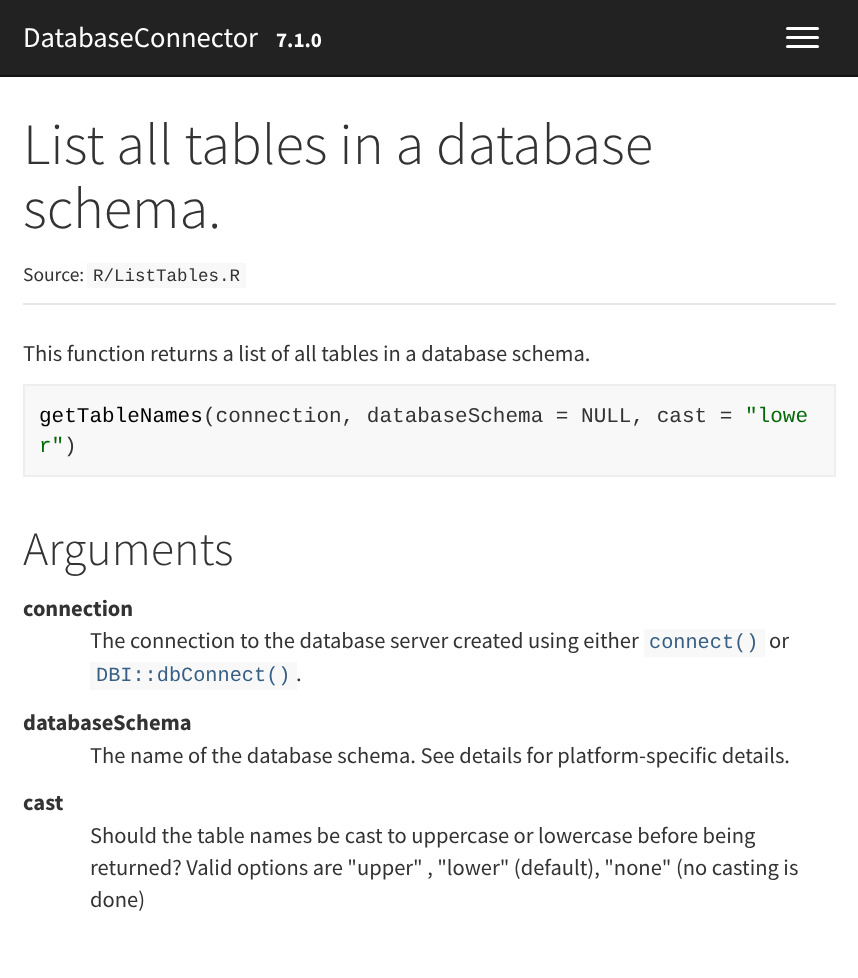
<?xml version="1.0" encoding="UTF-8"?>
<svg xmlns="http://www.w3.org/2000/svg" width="858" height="978">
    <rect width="100%" height="100%" fill="#FFFFFF"/>
    <rect x="0" y="0" width="858" height="75" fill="#222222"/>
    <rect x="0" y="75" width="858" height="2" fill="#121212"/>
    <text x="23" y="47" font-family="Source Sans Pro" font-size="28.5" fill="#FFFFFF">DatabaseConnector</text>
    <text x="276" y="47" font-family="Source Sans Pro" font-size="21" font-weight="700" fill="#FFFFFF">7.1.0</text>
    <rect x="786" y="27" width="33" height="3" rx="1.5" fill="#FFFFFF"/>
    <rect x="786" y="36" width="33" height="3" rx="1.5" fill="#FFFFFF"/>
    <rect x="786" y="45" width="33" height="3" rx="1.5" fill="#FFFFFF"/>
    <rect x="23" y="303" width="813" height="2" fill="#E6E6E6"/>
    <text font-family="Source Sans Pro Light" font-size="58.5" font-weight="300" fill="#333333">
        <tspan x="23" y="164">List all tables in a database</tspan>
        <tspan x="23" y="228">schema.</tspan>
    </text>
    <text x="23" y="281" font-family="Source Sans Pro" font-size="19.5" fill="#333333">Source:</text>
    <rect x="87" y="263" width="159" height="25" fill="#F8F8F8"/>
    <text x="93" y="281" font-family="Liberation Mono" font-size="17.5" fill="#333333">R/ListTables.R</text>
    <text x="23" y="361" font-family="Source Sans Pro" font-size="22.5" fill="#333333">This function returns a list of all tables in a database schema.</text>
    <rect x="24" y="385" width="811" height="91" fill="#F8F8F8" stroke="#EEEEEE" stroke-width="2"/>
    <text x="39" y="422" font-family="Liberation Mono" font-size="21" fill="#000000">getTableNames</text>
    <text x="203" y="422" font-family="Liberation Mono" font-size="21" fill="#333333">(connection, databaseSchema = NULL, cast =</text>
    <text x="745" y="422" font-family="Liberation Mono" font-size="21" fill="#036A07">"lowe</text>
    <text x="39" y="452" font-family="Liberation Mono" font-size="21" fill="#036A07">r"</text>
    <text x="64" y="452" font-family="Liberation Mono" font-size="21" fill="#333333">)</text>
    <text x="23" y="565" font-family="Source Sans Pro Light" font-size="48" font-weight="300" fill="#333333">Arguments</text>
    <text x="23" y="616" font-family="Source Sans Pro" font-size="22.5" font-weight="700" fill="#333333">connection</text>
    <text x="90" y="648" font-family="Source Sans Pro" font-size="22.5" fill="#333333">The connection to the database server created using either</text>
    <rect x="644" y="629" width="121" height="28" fill="#F8F8F8"/>
    <text x="649" y="648" font-family="Liberation Mono" font-size="20.25" fill="#375F84">connect()</text>
    <text x="769" y="648" font-family="Source Sans Pro" font-size="22.5" fill="#333333">or</text>
    <rect x="90" y="662" width="207" height="28" fill="#F8F8F8"/>
    <text x="96" y="681" font-family="Liberation Mono" font-size="20.25" fill="#375F84">DBI::dbConnect()</text>
    <text x="296" y="681" font-family="Source Sans Pro" font-size="22.5" fill="#333333">.</text>
    <text x="23" y="730" font-family="Source Sans Pro" font-size="22.5" font-weight="700" fill="#333333">databaseSchema</text>
    <text x="90" y="763" font-family="Source Sans Pro" font-size="22.5" fill="#333333">The name of the database schema. See details for platform-specific details.</text>
    <text x="23" y="810" font-family="Source Sans Pro" font-size="22.5" font-weight="700" fill="#333333">cast</text>
    <text font-family="Source Sans Pro" font-size="22.5" fill="#333333">
        <tspan x="90" y="843">Should the table names be cast to uppercase or lowercase before being</tspan>
        <tspan x="90" y="875">returned? Valid options are "upper" , "lower" (default), "none" (no casting is</tspan>
        <tspan x="90" y="907">done)</tspan>
    </text>
</svg>
